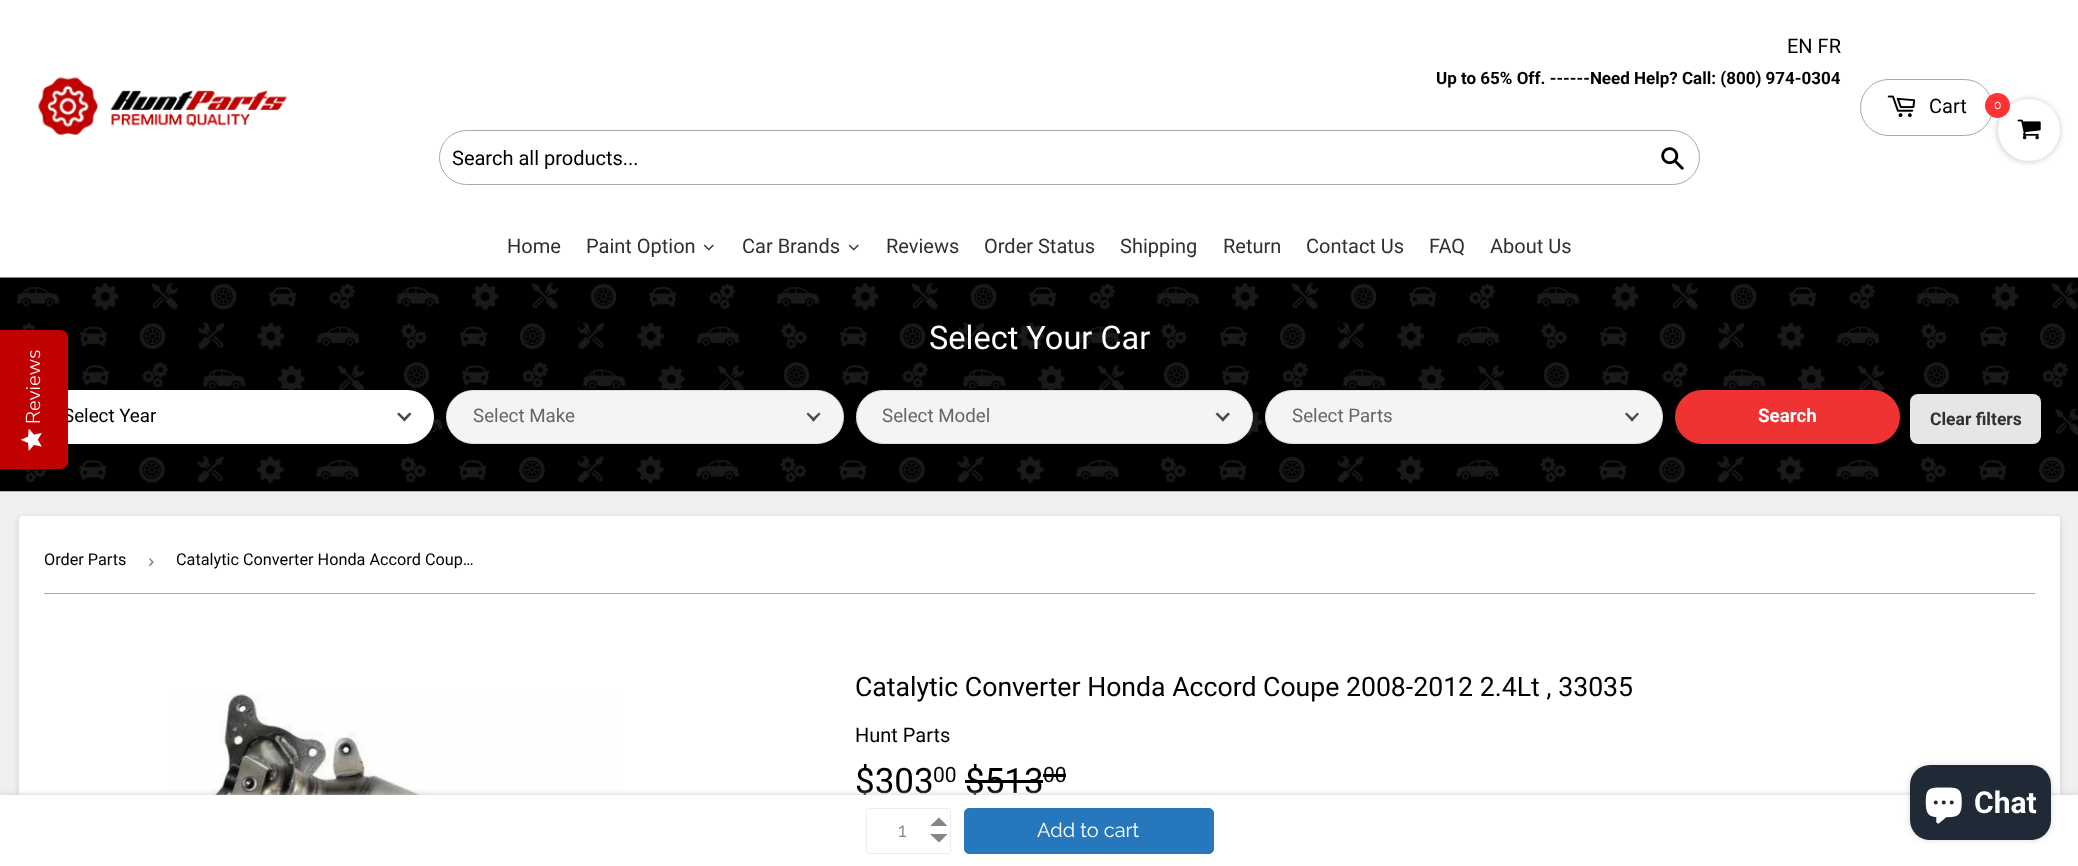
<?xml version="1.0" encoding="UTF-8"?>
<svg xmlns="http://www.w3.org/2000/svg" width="2078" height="866">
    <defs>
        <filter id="blur1" x="-50%" y="-200%" width="200%" height="500%"><feGaussianBlur stdDeviation="2.5"/></filter>
        <filter id="blur2" x="-50%" y="-200%" width="200%" height="500%"><feGaussianBlur stdDeviation="3"/></filter>
    </defs>
    <rect width="100%" height="100%" fill="#FFFFFF"/>
    <image x="38" y="77" width="249" height="58" href="img_01.png"/>
    <text x="1787" y="53" font-family="Roboto" font-size="20" fill="#000000">EN FR</text>
    <text x="1436" y="84" font-family="Roboto" font-size="17" font-weight="700" fill="#000000">Up to 65% Off. ------Need Help? Call: (800) 974-0304</text>
    <rect x="439.5" y="130.5" width="1260" height="54" rx="27" fill="none" stroke="#A9A9A9"/>
    <text x="452" y="165" font-family="Roboto" font-size="20" fill="#000000">Search all products...</text>
    <image x="1661" y="147" width="23" height="23" href="img_02.png"/>
    <rect x="1860.5" y="79.5" width="132" height="56" rx="28" fill="none" stroke="#A9A9A9"/>
    <image x="1887" y="95" width="29" height="23" href="img_03.png"/>
    <text x="1929" y="113" font-family="Roboto" font-size="20" fill="#000000">Cart</text>
    <text x="507" y="253" font-family="Roboto" font-size="20" fill="#303030">Home</text>
    <text x="586" y="253" font-family="Roboto" font-size="20" fill="#303030">Paint Option</text>
    <image x="703" y="244" width="11" height="7" href="img_04.png"/>
    <text x="742" y="253" font-family="Roboto" font-size="20" fill="#303030">Car Brands</text>
    <image x="848" y="244" width="11" height="7" href="img_04.png"/>
    <text x="886" y="253" font-family="Roboto" font-size="20" fill="#303030">Reviews</text>
    <text x="984" y="253" font-family="Roboto" font-size="20" fill="#303030">Order Status</text>
    <text x="1120" y="253" font-family="Roboto" font-size="20" fill="#303030">Shipping</text>
    <text x="1223" y="253" font-family="Roboto" font-size="20" fill="#303030">Return</text>
    <text x="1306" y="253" font-family="Roboto" font-size="20" fill="#303030">Contact Us</text>
    <text x="1429" y="253" font-family="Roboto" font-size="20" fill="#303030">FAQ</text>
    <text x="1490" y="253" font-family="Roboto" font-size="20" fill="#303030">About Us</text>
    <rect x="1996" y="98" width="65" height="65" rx="32.5" fill="#030303" fill-opacity="0.15" filter="url(#blur1)"/>
    <circle cx="2029" cy="130" r="31" fill="#FFFFFF"/>
    <circle cx="1997.5" cy="105.5" r="12.5" fill="#FF3333"/>
    <text x="1994" y="109" font-family="Raleway" font-size="12" font-weight="100" fill="#FFFFFF">0</text>
    <image x="2017" y="119" width="24" height="21" href="img_05.png"/>
    <rect x="0" y="491" width="2078" height="304" fill="#EFF0F2"/>
    <image x="0" y="277" width="2078" height="215" href="img_07.png"/>
    <rect x="38" y="390" width="396" height="54" rx="27" fill="#FFFFFF"/>
    <text x="63" y="422" font-family="Roboto" font-size="18.75" fill="#000000">Select Year</text>
    <path d="M 0 469 V 330 H 60 C 64 330 68 333 68 337 V 462 C 68 466 64 469 60 469 Z" fill="#C10202"/>
    <text x="40" y="424" transform="rotate(-90 40 424)" font-family="Nunito Sans" font-size="20" font-weight="300" fill="#FFFFFF">Reviews</text>
    <image x="20" y="428" width="22" height="23" href="img_06.png"/>
    <text x="929" y="349" font-family="Roboto" font-size="32.5" fill="#FFFFFF">Select Your Car</text>
    <path d="M 409.5 412.5 L 411.5 414 L 404.5 421.5 L 402.5 419.5 Z" fill="#4A4A4A"/>
    <path d="M 399 412.5 L 406 419.5 L 404.5 421.5 L 397 414 Z" fill="#4A4A4A"/>
    <rect x="446.5" y="390.5" width="397" height="53" rx="26.5" fill="#F4F4F4" stroke="#DDDDDD"/>
    <text x="473" y="422" font-family="Roboto" font-size="18.75" fill="#666666">Select Make</text>
    <path d="M 819 412.5 L 820.5 414 L 813.5 421.5 L 811.5 419.5 Z" fill="#4A4A4A"/>
    <path d="M 808 412.5 L 815.5 419.5 L 813.5 421.5 L 806.5 414 Z" fill="#4A4A4A"/>
    <rect x="856.5" y="390.5" width="396" height="53" rx="26.5" fill="#F4F4F4" stroke="#DDDDDD"/>
    <text x="882" y="422" font-family="Roboto" font-size="18.75" fill="#666666">Select Model</text>
    <path d="M 1228 412.5 L 1230 414 L 1223 421.5 L 1221 419.5 Z" fill="#4A4A4A"/>
    <path d="M 1217.5 412.5 L 1224.5 419.5 L 1223 421.5 L 1215.5 414 Z" fill="#4A4A4A"/>
    <rect x="1265.5" y="390.5" width="397" height="53" rx="26.5" fill="#F4F4F4" stroke="#DDDDDD"/>
    <text x="1292" y="422" font-family="Roboto" font-size="18.75" fill="#666666">Select Parts</text>
    <path d="M 1637.5 412.5 L 1639 414 L 1632 421.5 L 1630.5 419.5 Z" fill="#4A4A4A"/>
    <path d="M 1626.5 412.5 L 1634 419.5 L 1632 421.5 L 1625 414 Z" fill="#4A4A4A"/>
    <rect x="1675" y="390" width="225" height="54" rx="27" fill="#EF3232"/>
    <text x="1758" y="422" font-family="Roboto" font-size="18.75" font-weight="700" fill="#FFFFFF">Search</text>
    <rect x="1910" y="394" width="131" height="50" rx="8" fill="#E6E6E6"/>
    <text x="1930" y="425" font-family="Roboto" font-size="17.5" font-weight="700" fill="#303030">Clear filters</text>
    <rect x="19" y="518" width="2041" height="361" rx="4" fill="#000000" fill-opacity="0.15" filter="url(#blur2)"/>
    <rect x="19" y="516" width="2041" height="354" rx="4" fill="#FFFFFF"/>
    <rect x="44" y="593" width="1991" height="1" fill="#A9A9A9"/>
    <text x="44" y="565" font-family="Roboto" font-size="16.25" fill="#000000">Order Parts</text>
    <text x="148" y="567" font-family="Liberation Sans" font-size="18.75" fill="#767676">›</text>
    <text x="176" y="565" font-family="Roboto" font-size="16.25" fill="#000000">Catalytic Converter Honda Accord Coup…</text>
    <image x="171" y="693" width="449" height="102" href="img_08.png"/>
    <text x="855" y="696" font-family="Roboto" font-size="26.65" fill="#000000">Catalytic Converter Honda Accord Coupe 2008-2012 2.4Lt , 33035</text>
    <text x="855" y="742" font-family="Roboto" font-size="20" fill="#000000">Hunt Parts</text>
    <text x="855" y="793" font-family="Roboto" font-size="35" fill="#000000">$303</text>
    <text x="933" y="782" font-family="Roboto" font-size="21" fill="#000000">00</text>
    <text x="965" y="793" font-family="Roboto" font-size="35" fill="#000000">$513</text>
    <rect x="965" y="780" width="78" height="3" fill="#000000"/>
    <text x="1043" y="782" font-family="Roboto" font-size="21" fill="#000000">00</text>
    <rect x="1043" y="774" width="23" height="3" fill="#000000"/>
    <rect x="0" y="795" width="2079" height="71" fill="#CDCDCD" filter="url(#blur2)"/>
    <rect x="0" y="795" width="2078" height="71" fill="#FFFFFF"/>
    <rect x="1910" y="765" width="141" height="75" rx="20" fill="#000000" fill-opacity="0.15" filter="url(#blur2)"/>
    <rect x="1910" y="765" width="141" height="75" rx="20" fill="#202A36"/>
    <image x="1925" y="787" width="37" height="37" href="img_09.png"/>
    <text x="1974" y="813" font-family="Roboto" font-size="30" font-weight="700" fill="#FFFFFF">Chat</text>
    <rect x="866.5" y="808.5" width="84" height="45" rx="2" fill="none" stroke="#ECECEC"/>
    <text x="898" y="837" font-family="Raleway" font-size="20" font-weight="100" fill="#868686">1</text>
    <path d="M 947.5 826 H 930 L 939 817.5 Z M 930 834 H 947.5 L 939 842.5 Z" fill="#868686"/>
    <rect x="964.5" y="808.5" width="249" height="45" rx="4.5" fill="#2777BC" stroke="#2777BC"/>
    <text x="1037" y="837" font-family="Raleway" font-size="20" font-weight="100" fill="#FFFFFF">Add to cart</text>
</svg>
